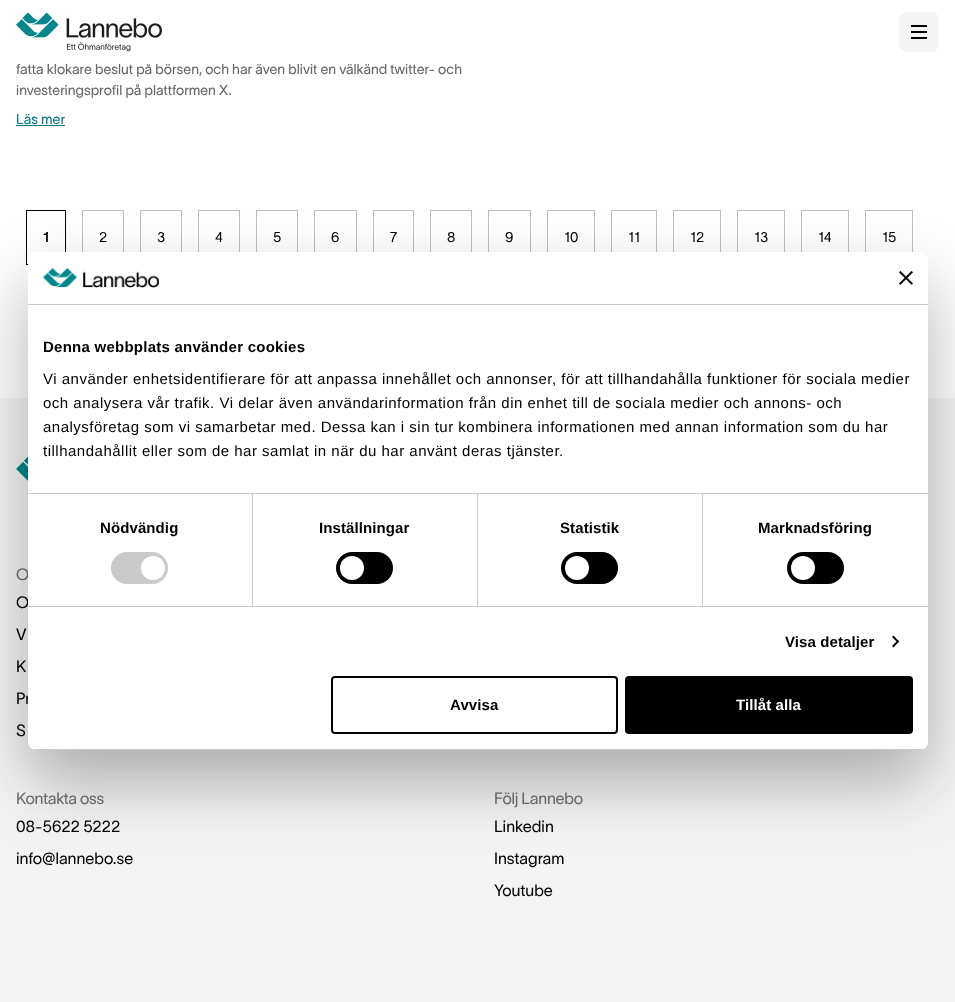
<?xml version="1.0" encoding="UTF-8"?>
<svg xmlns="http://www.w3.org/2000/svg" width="955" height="1002">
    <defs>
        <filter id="blur1" x="-50%" y="-200%" width="200%" height="500%"><feGaussianBlur stdDeviation="34"/></filter>
        <clipPath id="clip1"><rect x="28" y="252" width="900" height="498" rx="8"/></clipPath>
    </defs>
    <rect width="100%" height="100%" fill="#FFFFFF"/>
    <text x="16" y="74" font-family="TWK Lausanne" font-size="14" font-weight="300" fill="#666666">fatta klokare beslut på börsen, och har även blivit en välkänd twitter- och</text>
    <rect x="147" y="63" width="222" height="1" fill="#FFFFFF"/>
    <image x="16" y="12" width="146" height="40" href="img_01.png"/>
    <rect x="899" y="12" width="40" height="40" rx="8" fill="#F4F4F4"/>
    <rect x="911" y="25" width="16" height="2" fill="#000000"/>
    <rect x="911" y="37" width="16" height="2" fill="#000000"/>
    <rect x="911" y="31" width="16" height="2" fill="#000000"/>
    <text x="16" y="95" font-family="TWK Lausanne" font-size="14" font-weight="300" fill="#666666">investeringsprofil på plattformen X.</text>
    <text x="16" y="124" font-family="TWK Lausanne" font-size="14" font-weight="300" fill="#007980">Läs mer</text>
    <rect x="16" y="125" width="49" height="1" fill="#007980"/>
    <rect x="26.5" y="210.5" width="39" height="54" fill="none" stroke="#000000"/>
    <text x="43" y="242" font-family="TWK Lausanne" font-size="14" font-weight="600" fill="#000000">1</text>
    <rect x="82.5" y="210.5" width="41" height="54" fill="none" stroke="#BFBFBF"/>
    <text x="99" y="242" font-family="TWK Lausanne" font-size="14" font-weight="300" fill="#000000">2</text>
    <rect x="140.5" y="210.5" width="41" height="54" fill="none" stroke="#BFBFBF"/>
    <text x="157" y="242" font-family="TWK Lausanne" font-size="14" font-weight="300" fill="#000000">3</text>
    <rect x="198.5" y="210.5" width="41" height="54" fill="none" stroke="#BFBFBF"/>
    <text x="215" y="242" font-family="TWK Lausanne" font-size="14" font-weight="300" fill="#000000">4</text>
    <rect x="256.5" y="210.5" width="41" height="54" fill="none" stroke="#BFBFBF"/>
    <text x="273" y="242" font-family="TWK Lausanne" font-size="14" font-weight="300" fill="#000000">5</text>
    <rect x="314.5" y="210.5" width="42" height="54" fill="none" stroke="#BFBFBF"/>
    <text x="331" y="242" font-family="TWK Lausanne" font-size="14" font-weight="300" fill="#000000">6</text>
    <rect x="373.5" y="210.5" width="40" height="54" fill="none" stroke="#BFBFBF"/>
    <text x="390" y="242" font-family="TWK Lausanne" font-size="14" font-weight="300" fill="#000000">7</text>
    <rect x="430.5" y="210.5" width="41" height="54" fill="none" stroke="#BFBFBF"/>
    <text x="447" y="242" font-family="TWK Lausanne" font-size="14" font-weight="300" fill="#000000">8</text>
    <rect x="488.5" y="210.5" width="42" height="54" fill="none" stroke="#BFBFBF"/>
    <text x="505" y="242" font-family="TWK Lausanne" font-size="14" font-weight="300" fill="#000000">9</text>
    <rect x="547.5" y="210.5" width="47" height="54" fill="none" stroke="#BFBFBF"/>
    <text x="564" y="242" font-family="TWK Lausanne" font-size="14" font-weight="300" fill="#000000">10</text>
    <rect x="611.5" y="210.5" width="45" height="54" fill="none" stroke="#BFBFBF"/>
    <text x="628" y="242" font-family="TWK Lausanne" font-size="14" font-weight="300" fill="#000000">11</text>
    <rect x="673.5" y="210.5" width="47" height="54" fill="none" stroke="#BFBFBF"/>
    <text x="690" y="242" font-family="TWK Lausanne" font-size="14" font-weight="300" fill="#000000">12</text>
    <rect x="737.5" y="210.5" width="47" height="54" fill="none" stroke="#BFBFBF"/>
    <text x="754" y="242" font-family="TWK Lausanne" font-size="14" font-weight="300" fill="#000000">13</text>
    <rect x="801.5" y="210.5" width="47" height="54" fill="none" stroke="#BFBFBF"/>
    <text x="818" y="242" font-family="TWK Lausanne" font-size="14" font-weight="300" fill="#000000">14</text>
    <rect x="865.5" y="210.5" width="47" height="54" fill="none" stroke="#BFBFBF"/>
    <text x="882" y="242" font-family="TWK Lausanne" font-size="14" font-weight="300" fill="#000000">15</text>
    <rect x="0" y="398" width="955" height="604" fill="#F4F4F4"/>
    <image x="16" y="456" width="12" height="25" href="img_02.png"/>
    <text x="16" y="580" font-family="TWK Lausanne" font-size="16" font-weight="300" letter-spacing="-0.25" fill="#707070">O</text>
    <text x="16" y="608" font-family="TWK Lausanne" font-size="16" font-weight="300" fill="#000000">O</text>
    <text x="16" y="640" font-family="TWK Lausanne" font-size="16" font-weight="300" fill="#000000">V</text>
    <text x="16" y="672" font-family="TWK Lausanne" font-size="16" font-weight="300" fill="#000000">K</text>
    <text x="16" y="704" font-family="TWK Lausanne" font-size="16" font-weight="300" fill="#000000">Pr</text>
    <text x="16" y="736" font-family="TWK Lausanne" font-size="16" font-weight="300" fill="#000000">S</text>
    <text x="16" y="804" font-family="TWK Lausanne" font-size="16" font-weight="300" letter-spacing="-0.25" fill="#707070">Kontakta oss</text>
    <text x="16" y="832" font-family="TWK Lausanne" font-size="16" font-weight="300" fill="#000000">08-5622 5222</text>
    <text x="16" y="864" font-family="TWK Lausanne" font-size="16" font-weight="300" fill="#000000">info@lannebo.se</text>
    <text x="494" y="804" font-family="TWK Lausanne" font-size="16" font-weight="300" letter-spacing="-0.25" fill="#707070">Följ Lannebo</text>
    <text x="494" y="832" font-family="TWK Lausanne" font-size="16" font-weight="300" fill="#000000">Linkedin</text>
    <text x="494" y="864" font-family="TWK Lausanne" font-size="16" font-weight="300" fill="#000000">Instagram</text>
    <text x="494" y="896" font-family="TWK Lausanne" font-size="16" font-weight="300" fill="#000000">Youtube</text>
    <rect x="28" y="284" width="900" height="498" rx="8" fill="#000000" fill-opacity="0.3" filter="url(#blur1)"/>
    <rect x="28" y="252" width="900" height="498" rx="8" fill="#FFFFFF"/>
    <rect x="28" y="304" width="900" height="1" fill="#CACACA"/>
    <image x="43" y="267" width="116" height="21" href="img_03.png"/>
    <image x="899" y="271" width="14" height="14" href="img_04.png"/>
    <rect x="28" y="493" width="900" height="1" fill="#CACACA"/>
    <text x="43" y="352" font-family="Liberation Sans" font-size="15" font-weight="700" letter-spacing="0.25" fill="#000000">Denna webbplats använder cookies</text>
    <text font-family="Liberation Sans" font-size="15" letter-spacing="0.5" fill="#000000">
        <tspan x="43" y="384">Vi använder enhetsidentifierare för att anpassa innehållet och annonser, för att tillhandahålla funktioner för sociala medier</tspan>
        <tspan x="43" y="408">och analysera vår trafik. Vi delar även användarinformation från din enhet till de sociala medier och annons- och</tspan>
        <tspan x="43" y="432">analysföretag som vi samarbetar med. Dessa kan i sin tur kombinera informationen med annan information som du har</tspan>
        <tspan x="43" y="456">tillhandahållit eller som de har samlat in när du har använt deras tjänster.</tspan>
    </text>
    <rect x="28" y="606" width="900" height="1" fill="#CACACA"/>
    <rect x="252" y="494" width="1" height="112" fill="#CACACA"/>
    <text x="100" y="533" font-family="Liberation Sans" font-size="15" font-weight="700" letter-spacing="0.1" fill="#000000">Nödvändig</text>
    <rect x="111" y="552" width="57" height="32" rx="16" fill="#CACACA"/>
    <circle cx="153" cy="568" r="12" fill="#FFFFFF"/>
    <rect x="477" y="494" width="1" height="112" fill="#CACACA"/>
    <text x="319" y="533" font-family="Liberation Sans" font-size="15" font-weight="700" letter-spacing="0.1" fill="#000000">Inställningar</text>
    <rect x="336" y="552" width="57" height="32" rx="16" fill="#000000"/>
    <circle cx="352" cy="568" r="12" fill="#FFFFFF"/>
    <rect x="702" y="494" width="1" height="112" fill="#CACACA"/>
    <text x="560" y="533" font-family="Liberation Sans" font-size="15" font-weight="700" letter-spacing="0.1" fill="#000000">Statistik</text>
    <rect x="561" y="552" width="57" height="32" rx="16" fill="#000000"/>
    <circle cx="577" cy="568" r="12" fill="#FFFFFF"/>
    <text x="758" y="533" font-family="Liberation Sans" font-size="15" font-weight="700" letter-spacing="0.1" fill="#000000">Marknadsföring</text>
    <rect x="787" y="552" width="57" height="32" rx="16" fill="#000000"/>
    <circle cx="803" cy="568" r="12" fill="#FFFFFF"/>
    <text x="785" y="647" font-family="Liberation Sans" font-size="15" font-weight="700" letter-spacing="0.1" fill="#000000">Visa detaljer</text>
    <path d="M 893.5 635.5 L 899 641.5 L 898 643 L 892 637 Z" fill="#000000"/>
    <path d="M 898 640 L 899 641.5 L 893.5 647.5 L 892 646 Z" fill="#000000"/>
    <g clip-path="url(#clip1)">
        <rect x="28" y="749" width="900" height="1" fill="#CACACA"/>
    </g>
    <rect x="332" y="677" width="285" height="56" rx="3" fill="none" stroke="#000000" stroke-width="2"/>
    <text x="450" y="710" font-family="Liberation Sans" font-size="15" font-weight="700" letter-spacing="0.1" fill="#000000">Avvisa</text>
    <rect x="626" y="677" width="286" height="56" rx="3" fill="#000000" stroke="#000000" stroke-width="2"/>
    <text x="736" y="710" font-family="Liberation Sans" font-size="15" font-weight="700" letter-spacing="0.1" fill="#FFFFFF">Tillåt alla</text>
</svg>
